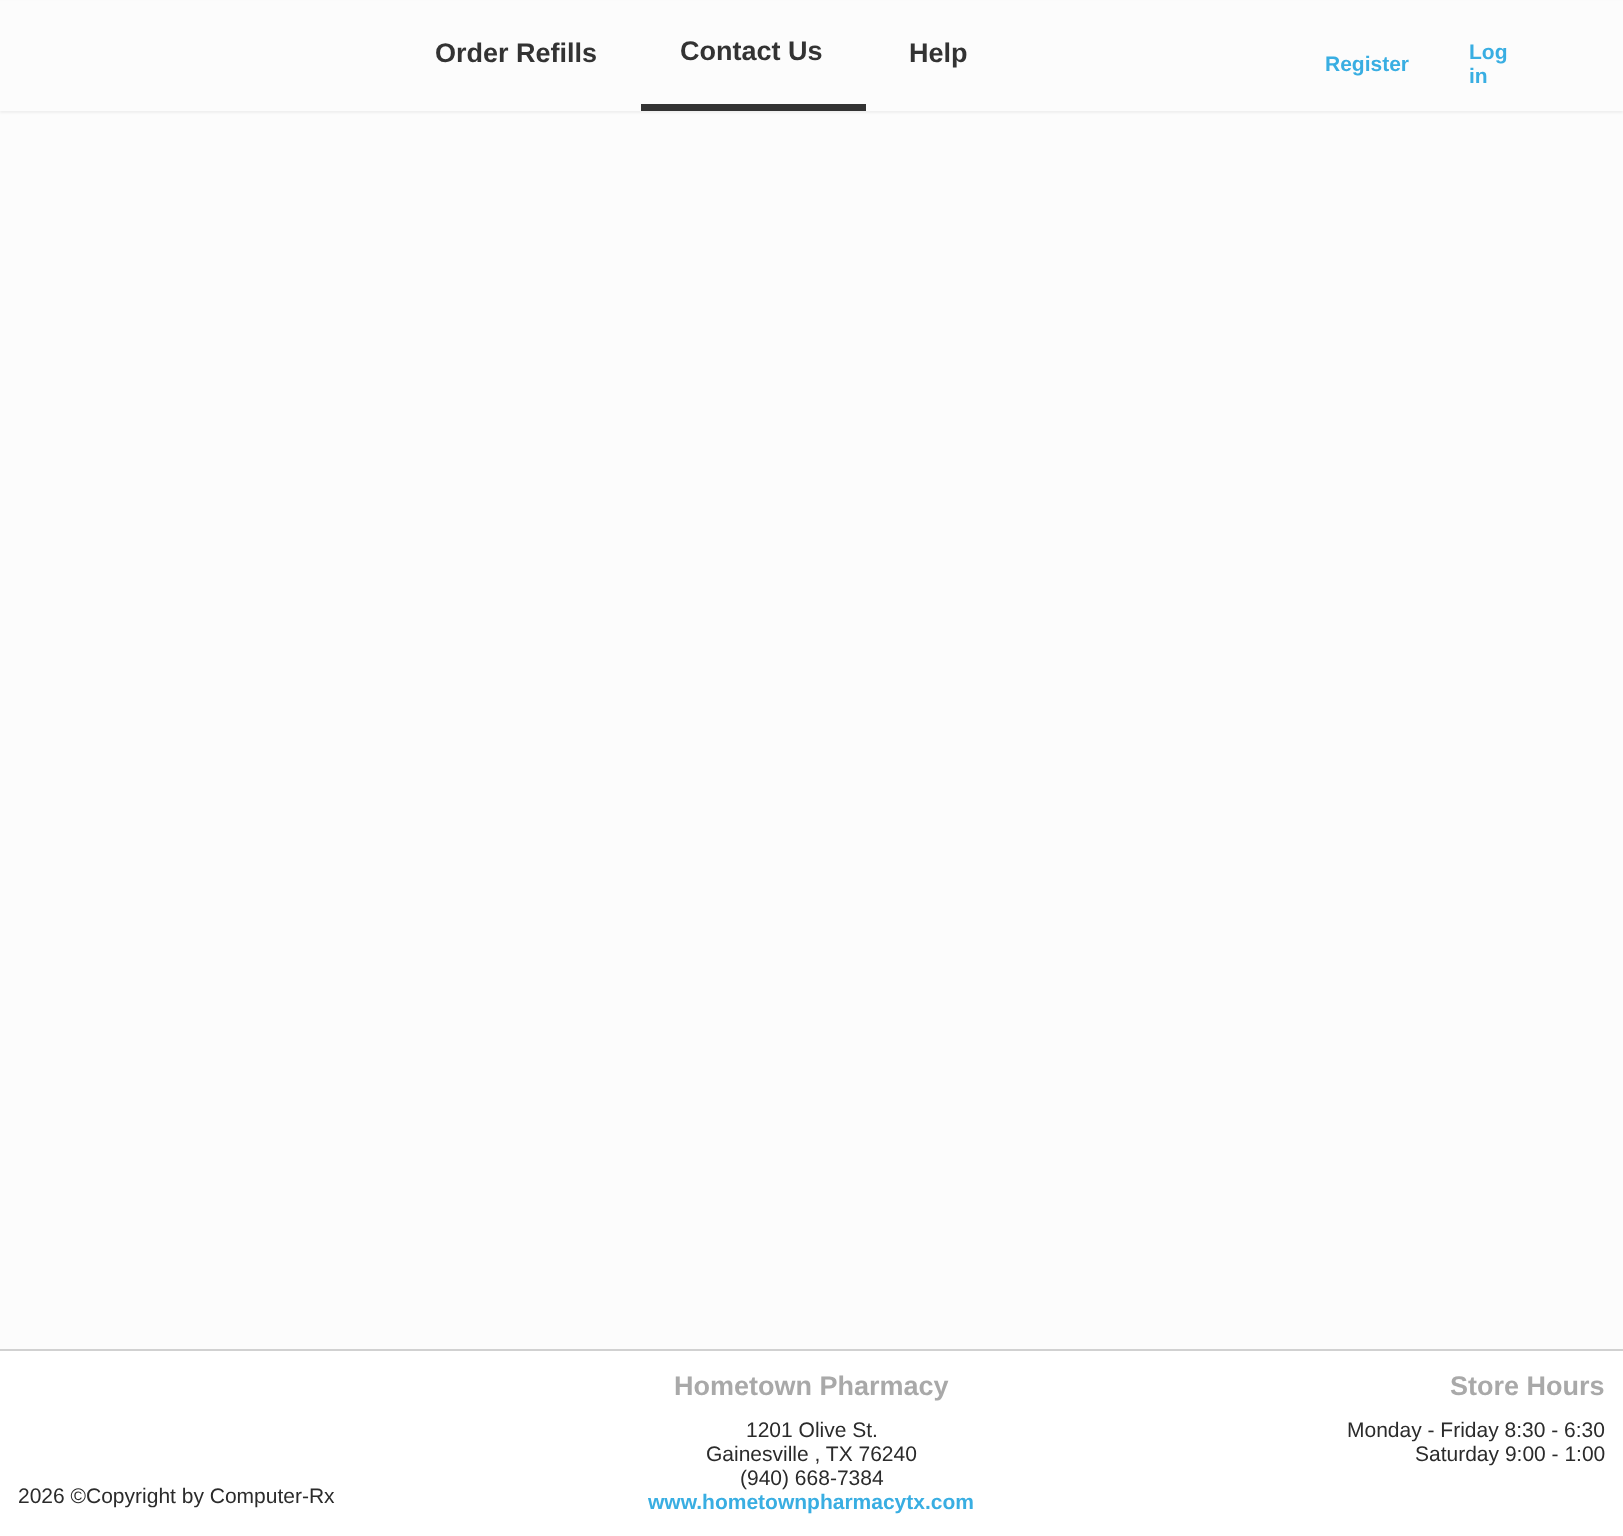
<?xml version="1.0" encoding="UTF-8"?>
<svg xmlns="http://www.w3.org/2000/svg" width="1623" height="1536">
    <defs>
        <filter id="blur1" x="-50%" y="-200%" width="200%" height="500%"><feGaussianBlur stdDeviation="1"/></filter>
    </defs>
    <rect width="100%" height="100%" fill="#FCFCFC"/>
    <rect x="0" y="2" width="1623" height="111" fill="#000000" fill-opacity="0.05" filter="url(#blur1)"/>
    <rect x="0" y="1" width="1623" height="110" fill="#FCFCFC"/>
    <text x="435" y="62" font-family="Liberation Sans" font-size="27" font-weight="700" fill="#333333">Order Refills</text>
    <rect x="641" y="104" width="225" height="7" fill="#333333"/>
    <text x="680" y="60" font-family="Liberation Sans" font-size="27" font-weight="700" fill="#333333">Contact Us</text>
    <text x="909" y="62" font-family="Liberation Sans" font-size="27" font-weight="700" fill="#333333">Help</text>
    <text x="1325" y="71" font-family="Liberation Sans" font-size="21" font-weight="700" fill="#39AEE2">Register</text>
    <text font-family="Liberation Sans" font-size="21" font-weight="700" fill="#39AEE2">
        <tspan x="1469" y="59">Log</tspan>
        <tspan x="1469" y="83">in</tspan>
    </text>
    <rect x="0" y="1351" width="1623" height="185" fill="#FFFFFF"/>
    <rect x="0" y="1349" width="1623" height="2" fill="#D1D1D1"/>
    <text x="674" y="1395" font-family="Liberation Sans" font-size="27" font-weight="700" fill="#A9A9A9">Hometown Pharmacy</text>
    <text x="746" y="1437" font-family="Liberation Sans" font-size="21" fill="#2B2B2B">1201 Olive St.</text>
    <text x="706" y="1461" font-family="Liberation Sans" font-size="21" fill="#2B2B2B">Gainesville , TX 76240</text>
    <text x="740" y="1485" font-family="Liberation Sans" font-size="21" fill="#2B2B2B">(940) 668-7384</text>
    <text x="648" y="1509" font-family="Liberation Sans" font-size="21" font-weight="700" fill="#39AEE2">www.hometownpharmacytx.com</text>
    <text x="1450" y="1395" font-family="Liberation Sans" font-size="27" font-weight="700" fill="#A9A9A9">Store Hours</text>
    <text x="1347" y="1437" font-family="Liberation Sans" font-size="21" fill="#2B2B2B">Monday - Friday 8:30 - 6:30</text>
    <text x="1415" y="1461" font-family="Liberation Sans" font-size="21" fill="#2B2B2B">Saturday 9:00 - 1:00</text>
    <text x="18" y="1503" font-family="Liberation Sans" font-size="21" fill="#2B2B2B">2026 ©Copyright by Computer-Rx</text>
</svg>
